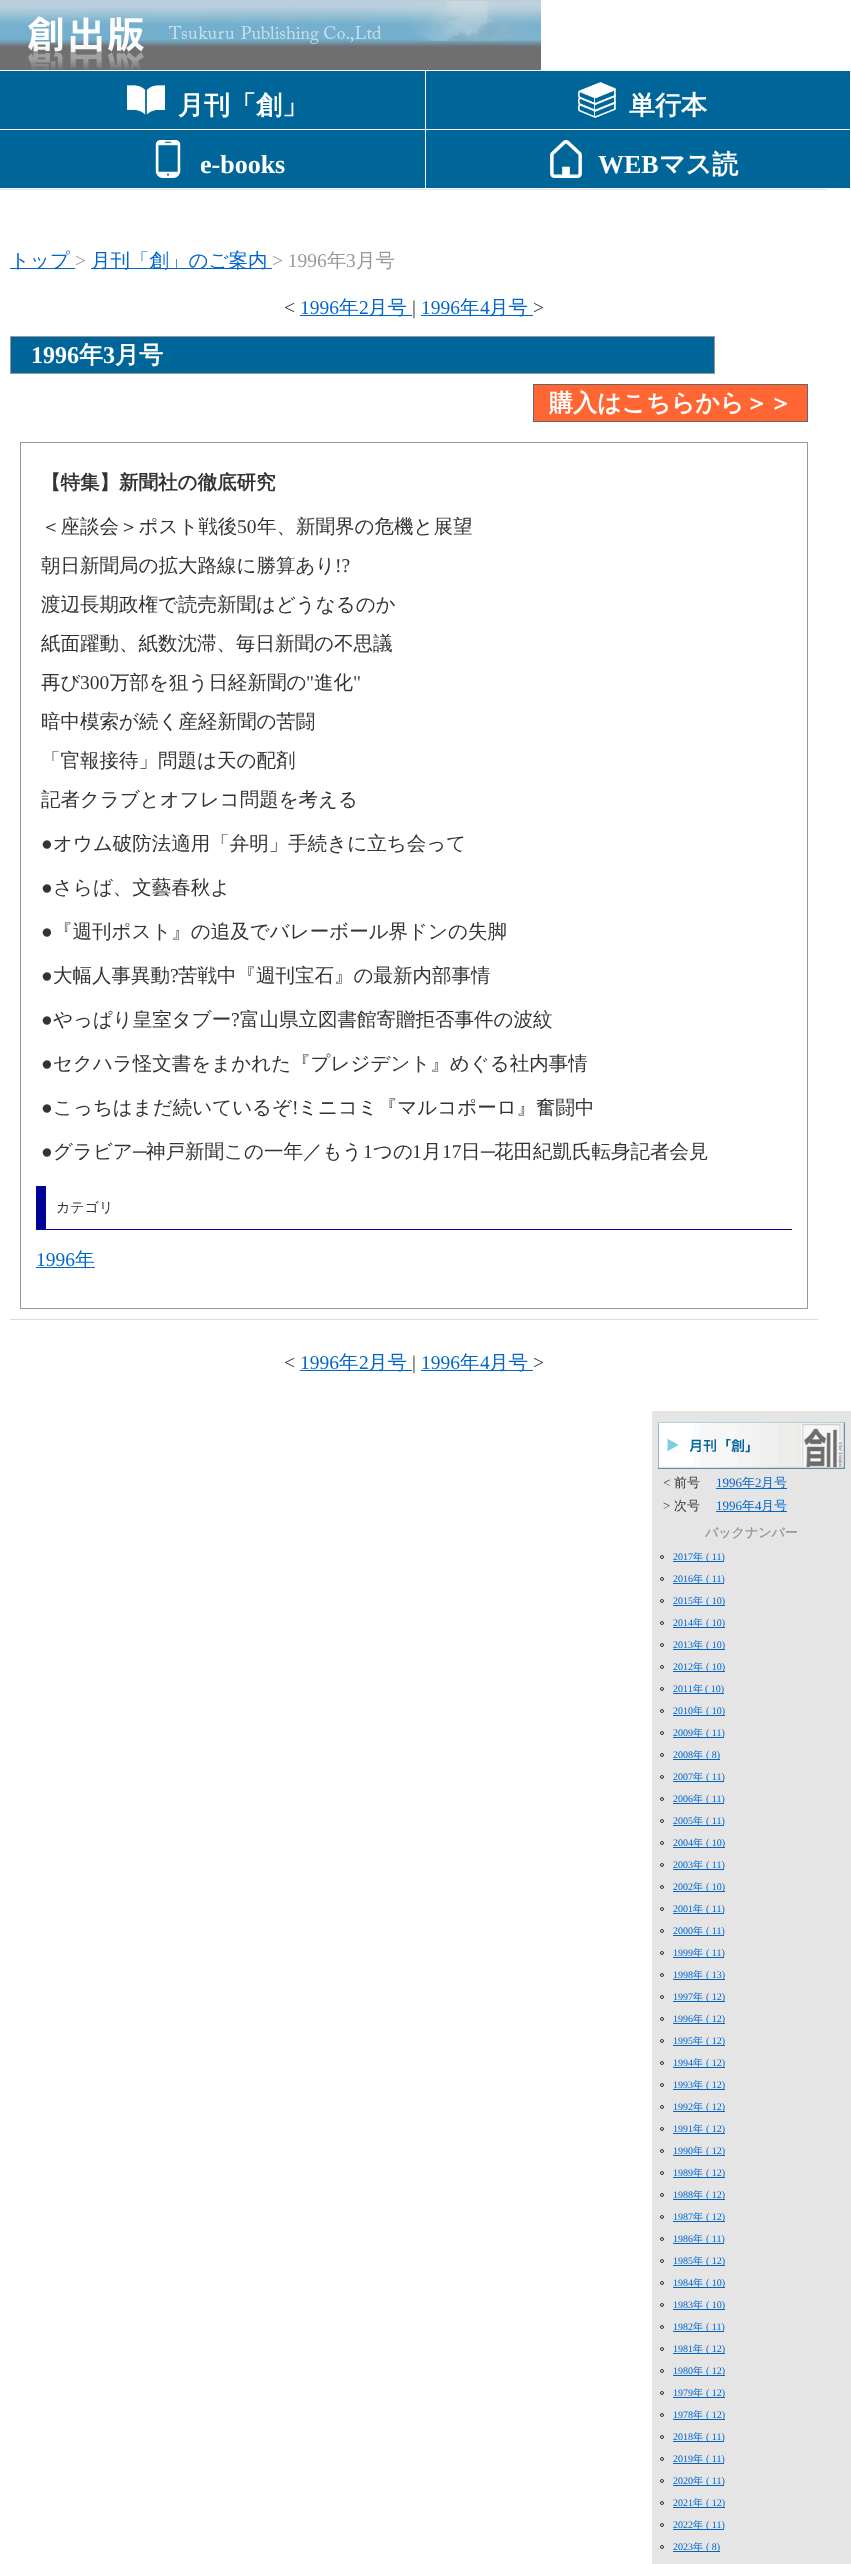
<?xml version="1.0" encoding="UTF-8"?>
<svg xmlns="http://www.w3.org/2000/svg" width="851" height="2564">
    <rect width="100%" height="100%" fill="#FFFFFF"/>
    <image x="0" y="0" width="541" height="70" href="img_01.png"/>
    <rect x="0" y="71" width="425" height="58" fill="#006699"/>
    <image x="127" y="85" width="38" height="30" href="img_02.png"/>
    <text x="178" y="114" font-family="WenQuanYi Zen Hei" font-size="26" font-weight="700" fill="#FFFFFF">月刊「創」</text>
    <rect x="426" y="71" width="424" height="58" fill="#006699"/>
    <image x="578" y="82" width="38" height="36" href="img_03.png"/>
    <text x="629" y="114" font-family="WenQuanYi Zen Hei" font-size="26" font-weight="700" fill="#FFFFFF">単行本</text>
    <rect x="0" y="130" width="425" height="58" fill="#006699"/>
    <image x="155" y="140" width="26" height="38" href="img_04.png"/>
    <text x="200" y="173" font-family="Liberation Serif" font-size="26" font-weight="700" fill="#FFFFFF">e-books</text>
    <rect x="426" y="130" width="424" height="58" fill="#006699"/>
    <image x="550" y="140" width="32" height="38" href="img_05.png"/>
    <text x="598" y="173" font-family="Liberation Serif" font-size="26" font-weight="700" fill="#FFFFFF">WEB</text>
    <text x="659" y="173" font-family="WenQuanYi Zen Hei" font-size="26" font-weight="700" fill="#FFFFFF">マス読</text>
    <rect x="0" y="189" width="828" height="1" fill="#E5E5E5"/>
    <rect x="10" y="268" width="65" height="1" fill="#0066CC"/>
    <text x="10" y="267" font-family="WenQuanYi Zen Hei" font-size="19.5" font-weight="500" fill="#0066CC">トップ</text>
    <text x="75" y="267" font-family="Liberation Serif" font-size="19.5" fill="#999999">&gt;</text>
    <rect x="91" y="268" width="181" height="1" fill="#0066CC"/>
    <text x="91" y="267" font-family="WenQuanYi Zen Hei" font-size="19.5" font-weight="500" fill="#0066CC">月刊「創」のご案内</text>
    <text x="272" y="267" font-family="Liberation Serif" font-size="19.5" fill="#999999">&gt; 1996</text>
    <text x="327" y="267" font-family="WenQuanYi Zen Hei" font-size="19.5" font-weight="500" fill="#999999">年</text>
    <text x="346" y="267" font-family="Liberation Serif" font-size="19.5" fill="#999999">3</text>
    <text x="356" y="267" font-family="WenQuanYi Zen Hei" font-size="19.5" font-weight="500" fill="#999999">月号</text>
    <text x="284" y="314" font-family="Liberation Serif" font-size="19.5" fill="#333333">&lt;</text>
    <text x="300" y="314" font-family="Liberation Serif" font-size="19.5" fill="#0066CC">1996</text>
    <rect x="300" y="315" width="112" height="1" fill="#0066CC"/>
    <text x="339" y="314" font-family="WenQuanYi Zen Hei" font-size="19.5" font-weight="500" fill="#0066CC">年</text>
    <text x="359" y="314" font-family="Liberation Serif" font-size="19.5" fill="#0066CC">2</text>
    <text x="368" y="314" font-family="WenQuanYi Zen Hei" font-size="19.5" font-weight="500" fill="#0066CC">月号</text>
    <text x="412" y="314" font-family="Liberation Serif" font-size="19.5" fill="#333333">|</text>
    <text x="421" y="314" font-family="Liberation Serif" font-size="19.5" fill="#0066CC">1996</text>
    <rect x="421" y="315" width="112" height="1" fill="#0066CC"/>
    <text x="460" y="314" font-family="WenQuanYi Zen Hei" font-size="19.5" font-weight="500" fill="#0066CC">年</text>
    <text x="480" y="314" font-family="Liberation Serif" font-size="19.5" fill="#0066CC">4</text>
    <text x="489" y="314" font-family="WenQuanYi Zen Hei" font-size="19.5" font-weight="500" fill="#0066CC">月号</text>
    <text x="533" y="314" font-family="Liberation Serif" font-size="19.5" fill="#333333">&gt;</text>
    <rect x="10.5" y="336.5" width="704" height="37" fill="#006699" stroke="#999999"/>
    <text x="31" y="363" font-family="Liberation Serif" font-size="24" font-weight="700" fill="#FFFFFF">1996</text>
    <text x="79" y="363" font-family="WenQuanYi Zen Hei" font-size="24" font-weight="700" fill="#FFFFFF">年</text>
    <text x="103" y="363" font-family="Liberation Serif" font-size="24" font-weight="700" fill="#FFFFFF">3</text>
    <text x="115" y="363" font-family="WenQuanYi Zen Hei" font-size="24" font-weight="700" fill="#FFFFFF">月号</text>
    <rect x="533.5" y="384.5" width="274" height="37" fill="#FF6633" stroke="#666666"/>
    <text x="549" y="411" font-family="WenQuanYi Zen Hei" font-size="24" font-weight="700" fill="#FFFFFF">購入はこちらから＞＞</text>
    <rect x="20.5" y="442.5" width="787" height="866" fill="none" stroke="#999999"/>
    <text x="41" y="489" font-family="WenQuanYi Zen Hei" font-size="19.5" font-weight="700" fill="#333333">【特集】新聞社の徹底研究</text>
    <text x="41" y="533" font-family="WenQuanYi Zen Hei" font-size="19.5" font-weight="500" fill="#333333">＜座談会＞ポスト戦後</text>
    <text x="237" y="533" font-family="Liberation Serif" font-size="19.5" fill="#333333">50</text>
    <text x="257" y="533" font-family="WenQuanYi Zen Hei" font-size="19.5" font-weight="500" fill="#333333">年、新聞界の危機と展望</text>
    <text x="41" y="572" font-family="WenQuanYi Zen Hei" font-size="19.5" font-weight="500" fill="#333333">朝日新聞局の拡大路線に勝算あり</text>
    <text x="335" y="572" font-family="Liberation Serif" font-size="19.5" fill="#333333">!?</text>
    <text x="41" y="611" font-family="WenQuanYi Zen Hei" font-size="19.5" font-weight="500" fill="#333333">渡辺長期政権で読売新聞はどうなるのか</text>
    <text x="41" y="650" font-family="WenQuanYi Zen Hei" font-size="19.5" font-weight="500" fill="#333333">紙面躍動、紙数沈滞、毎日新聞の不思議</text>
    <text x="41" y="689" font-family="WenQuanYi Zen Hei" font-size="19.5" font-weight="500" fill="#333333">再び</text>
    <text x="80" y="689" font-family="Liberation Serif" font-size="19.5" fill="#333333">300</text>
    <text x="110" y="689" font-family="WenQuanYi Zen Hei" font-size="19.5" font-weight="500" fill="#333333">万部を狙う日経新聞の</text>
    <text x="306" y="689" font-family="Liberation Serif" font-size="19.5" fill="#333333">"</text>
    <text x="314" y="689" font-family="WenQuanYi Zen Hei" font-size="19.5" font-weight="500" fill="#333333">進化</text>
    <text x="353" y="689" font-family="Liberation Serif" font-size="19.5" fill="#333333">"</text>
    <text x="41" y="728" font-family="WenQuanYi Zen Hei" font-size="19.5" font-weight="500" fill="#333333">暗中模索が続く産経新聞の苦闘</text>
    <text x="41" y="767" font-family="WenQuanYi Zen Hei" font-size="19.5" font-weight="500" fill="#333333">「官報接待」問題は天の配剤</text>
    <text x="41" y="806" font-family="WenQuanYi Zen Hei" font-size="19.5" font-weight="500" fill="#333333">記者クラブとオフレコ問題を考える</text>
    <text x="41" y="850" font-family="Liberation Serif" font-size="19.5" fill="#333333">●</text>
    <text x="53" y="850" font-family="WenQuanYi Zen Hei" font-size="19.5" font-weight="500" fill="#333333">オウム破防法適用「弁明」手続きに立ち会って</text>
    <text x="41" y="894" font-family="Liberation Serif" font-size="19.5" fill="#333333">●</text>
    <text x="53" y="894" font-family="WenQuanYi Zen Hei" font-size="19.5" font-weight="500" fill="#333333">さらば、文藝春秋よ</text>
    <text x="41" y="938" font-family="Liberation Serif" font-size="19.5" fill="#333333">●</text>
    <text x="53" y="938" font-family="WenQuanYi Zen Hei" font-size="19.5" font-weight="500" fill="#333333">『週刊ポスト』の追及でバレーボール界ドンの失脚</text>
    <text x="41" y="982" font-family="Liberation Serif" font-size="19.5" fill="#333333">●</text>
    <text x="53" y="982" font-family="WenQuanYi Zen Hei" font-size="19.5" font-weight="500" fill="#333333">大幅人事異動</text>
    <text x="170" y="982" font-family="Liberation Serif" font-size="19.5" fill="#333333">?</text>
    <text x="178" y="982" font-family="WenQuanYi Zen Hei" font-size="19.5" font-weight="500" fill="#333333">苦戦中『週刊宝石』の最新内部事情</text>
    <text x="41" y="1026" font-family="Liberation Serif" font-size="19.5" fill="#333333">●</text>
    <text x="53" y="1026" font-family="WenQuanYi Zen Hei" font-size="19.5" font-weight="500" fill="#333333">やっぱり皇室タブー</text>
    <text x="231" y="1026" font-family="Liberation Serif" font-size="19.5" fill="#333333">?</text>
    <text x="240" y="1026" font-family="WenQuanYi Zen Hei" font-size="19.5" font-weight="500" fill="#333333">富山県立図書館寄贈拒否事件の波紋</text>
    <text x="41" y="1070" font-family="Liberation Serif" font-size="19.5" fill="#333333">●</text>
    <text x="53" y="1070" font-family="WenQuanYi Zen Hei" font-size="19.5" font-weight="500" fill="#333333">セクハラ怪文書をまかれた『プレジデント』めぐる社内事情</text>
    <text x="41" y="1114" font-family="Liberation Serif" font-size="19.5" fill="#333333">●</text>
    <text x="53" y="1114" font-family="WenQuanYi Zen Hei" font-size="19.5" font-weight="500" fill="#333333">こっちはまだ続いているぞ</text>
    <text x="292" y="1114" font-family="Liberation Serif" font-size="19.5" fill="#333333">!</text>
    <text x="298" y="1114" font-family="WenQuanYi Zen Hei" font-size="19.5" font-weight="500" fill="#333333">ミニコミ『マルコポーロ』奮闘中</text>
    <text x="41" y="1158" font-family="Liberation Serif" font-size="19.5" fill="#333333">●</text>
    <text x="53" y="1158" font-family="WenQuanYi Zen Hei" font-size="19.5" font-weight="500" fill="#333333">グラビア</text>
    <text x="133" y="1158" font-family="Liberation Serif" font-size="19.5" fill="#333333">─</text>
    <text x="146" y="1158" font-family="WenQuanYi Zen Hei" font-size="19.5" font-weight="500" fill="#333333">神戸新聞この一年／もう</text>
    <text x="363" y="1158" font-family="Liberation Serif" font-size="19.5" fill="#333333">1</text>
    <text x="373" y="1158" font-family="WenQuanYi Zen Hei" font-size="19.5" font-weight="500" fill="#333333">つの</text>
    <text x="412" y="1158" font-family="Liberation Serif" font-size="19.5" fill="#333333">1</text>
    <text x="422" y="1158" font-family="WenQuanYi Zen Hei" font-size="19.5" font-weight="500" fill="#333333">月</text>
    <text x="442" y="1158" font-family="Liberation Serif" font-size="19.5" fill="#333333">17</text>
    <text x="461" y="1158" font-family="WenQuanYi Zen Hei" font-size="19.5" font-weight="500" fill="#333333">日</text>
    <text x="481" y="1158" font-family="Liberation Serif" font-size="19.5" fill="#333333">─</text>
    <text x="494" y="1158" font-family="WenQuanYi Zen Hei" font-size="19.5" font-weight="500" fill="#333333">花田紀凱氏転身記者会見</text>
    <rect x="46" y="1229" width="746" height="1" fill="#000099"/>
    <rect x="36" y="1186" width="10" height="44" fill="#000099"/>
    <text x="56" y="1212" font-family="WenQuanYi Zen Hei" font-size="14" font-weight="500" fill="#333333">カテゴリ</text>
    <text x="36" y="1266" font-family="Liberation Serif" font-size="19.5" fill="#0066CC">1996</text>
    <rect x="36" y="1267" width="59" height="1" fill="#0066CC"/>
    <text x="75" y="1266" font-family="WenQuanYi Zen Hei" font-size="19.5" font-weight="500" fill="#0066CC">年</text>
    <rect x="10" y="1319" width="808" height="1" fill="#DDDDDD"/>
    <text x="284" y="1369" font-family="Liberation Serif" font-size="19.5" fill="#333333">&lt;</text>
    <text x="300" y="1369" font-family="Liberation Serif" font-size="19.5" fill="#0066CC">1996</text>
    <rect x="300" y="1370" width="112" height="1" fill="#0066CC"/>
    <text x="339" y="1369" font-family="WenQuanYi Zen Hei" font-size="19.5" font-weight="500" fill="#0066CC">年</text>
    <text x="359" y="1369" font-family="Liberation Serif" font-size="19.5" fill="#0066CC">2</text>
    <text x="368" y="1369" font-family="WenQuanYi Zen Hei" font-size="19.5" font-weight="500" fill="#0066CC">月号</text>
    <text x="412" y="1369" font-family="Liberation Serif" font-size="19.5" fill="#333333">|</text>
    <text x="421" y="1369" font-family="Liberation Serif" font-size="19.5" fill="#0066CC">1996</text>
    <rect x="421" y="1370" width="112" height="1" fill="#0066CC"/>
    <text x="460" y="1369" font-family="WenQuanYi Zen Hei" font-size="19.5" font-weight="500" fill="#0066CC">年</text>
    <text x="480" y="1369" font-family="Liberation Serif" font-size="19.5" fill="#0066CC">4</text>
    <text x="489" y="1369" font-family="WenQuanYi Zen Hei" font-size="19.5" font-weight="500" fill="#0066CC">月号</text>
    <text x="533" y="1369" font-family="Liberation Serif" font-size="19.5" fill="#333333">&gt;</text>
    <rect x="652" y="1411" width="199" height="1153" fill="#E5E5E5"/>
    <image x="658" y="1422" width="187" height="47" href="img_06.png"/>
    <text x="663" y="1487" font-family="Liberation Serif" font-size="13" fill="#333333">&lt;</text>
    <text x="674" y="1487" font-family="WenQuanYi Zen Hei" font-size="13" font-weight="500" fill="#333333">前号</text>
    <text x="716" y="1487" font-family="Liberation Serif" font-size="13" fill="#0066CC">1996</text>
    <rect x="716" y="1488" width="71" height="1" fill="#0066CC"/>
    <text x="742" y="1487" font-family="WenQuanYi Zen Hei" font-size="13" font-weight="500" fill="#0066CC">年</text>
    <text x="755" y="1487" font-family="Liberation Serif" font-size="13" fill="#0066CC">2</text>
    <text x="761" y="1487" font-family="WenQuanYi Zen Hei" font-size="13" font-weight="500" fill="#0066CC">月号</text>
    <text x="663" y="1510" font-family="Liberation Serif" font-size="13" fill="#333333">&gt;</text>
    <text x="674" y="1510" font-family="WenQuanYi Zen Hei" font-size="13" font-weight="500" fill="#333333">次号</text>
    <text x="716" y="1510" font-family="Liberation Serif" font-size="13" fill="#0066CC">1996</text>
    <rect x="716" y="1511" width="71" height="1" fill="#0066CC"/>
    <text x="742" y="1510" font-family="WenQuanYi Zen Hei" font-size="13" font-weight="500" fill="#0066CC">年</text>
    <text x="755" y="1510" font-family="Liberation Serif" font-size="13" fill="#0066CC">4</text>
    <text x="761" y="1510" font-family="WenQuanYi Zen Hei" font-size="13" font-weight="500" fill="#0066CC">月号</text>
    <text x="705" y="1537" font-family="WenQuanYi Zen Hei" font-size="13" font-weight="700" fill="#999999">バックナンバー</text>
    <circle cx="662" cy="1557" r="1.5" fill="none" stroke="#333333"/>
    <text x="673" y="1560" font-family="Liberation Serif" font-size="10" fill="#0066CC">2017</text>
    <rect x="673" y="1561" width="51" height="1" fill="#0066CC"/>
    <text x="693" y="1560" font-family="WenQuanYi Zen Hei" font-size="10" font-weight="500" fill="#0066CC">年</text>
    <text x="706" y="1560" font-family="Liberation Serif" font-size="10" fill="#0066CC">( 11)</text>
    <circle cx="662" cy="1579" r="1.5" fill="none" stroke="#333333"/>
    <text x="673" y="1582" font-family="Liberation Serif" font-size="10" fill="#0066CC">2016</text>
    <rect x="673" y="1583" width="51" height="1" fill="#0066CC"/>
    <text x="693" y="1582" font-family="WenQuanYi Zen Hei" font-size="10" font-weight="500" fill="#0066CC">年</text>
    <text x="706" y="1582" font-family="Liberation Serif" font-size="10" fill="#0066CC">( 11)</text>
    <circle cx="662" cy="1601" r="1.5" fill="none" stroke="#333333"/>
    <text x="673" y="1604" font-family="Liberation Serif" font-size="10" fill="#0066CC">2015</text>
    <rect x="673" y="1605" width="52" height="1" fill="#0066CC"/>
    <text x="693" y="1604" font-family="WenQuanYi Zen Hei" font-size="10" font-weight="500" fill="#0066CC">年</text>
    <text x="706" y="1604" font-family="Liberation Serif" font-size="10" fill="#0066CC">( 10)</text>
    <circle cx="662" cy="1623" r="1.5" fill="none" stroke="#333333"/>
    <text x="673" y="1626" font-family="Liberation Serif" font-size="10" fill="#0066CC">2014</text>
    <rect x="673" y="1627" width="52" height="1" fill="#0066CC"/>
    <text x="693" y="1626" font-family="WenQuanYi Zen Hei" font-size="10" font-weight="500" fill="#0066CC">年</text>
    <text x="706" y="1626" font-family="Liberation Serif" font-size="10" fill="#0066CC">( 10)</text>
    <circle cx="662" cy="1645" r="1.5" fill="none" stroke="#333333"/>
    <text x="673" y="1648" font-family="Liberation Serif" font-size="10" fill="#0066CC">2013</text>
    <rect x="673" y="1649" width="52" height="1" fill="#0066CC"/>
    <text x="693" y="1648" font-family="WenQuanYi Zen Hei" font-size="10" font-weight="500" fill="#0066CC">年</text>
    <text x="706" y="1648" font-family="Liberation Serif" font-size="10" fill="#0066CC">( 10)</text>
    <circle cx="662" cy="1667" r="1.5" fill="none" stroke="#333333"/>
    <text x="673" y="1670" font-family="Liberation Serif" font-size="10" fill="#0066CC">2012</text>
    <rect x="673" y="1671" width="52" height="1" fill="#0066CC"/>
    <text x="693" y="1670" font-family="WenQuanYi Zen Hei" font-size="10" font-weight="500" fill="#0066CC">年</text>
    <text x="706" y="1670" font-family="Liberation Serif" font-size="10" fill="#0066CC">( 10)</text>
    <circle cx="662" cy="1689" r="1.5" fill="none" stroke="#333333"/>
    <text x="673" y="1692" font-family="Liberation Serif" font-size="10" fill="#0066CC">2011</text>
    <rect x="673" y="1693" width="51" height="1" fill="#0066CC"/>
    <text x="693" y="1692" font-family="WenQuanYi Zen Hei" font-size="10" font-weight="500" fill="#0066CC">年</text>
    <text x="705" y="1692" font-family="Liberation Serif" font-size="10" fill="#0066CC">( 10)</text>
    <circle cx="662" cy="1711" r="1.5" fill="none" stroke="#333333"/>
    <text x="673" y="1714" font-family="Liberation Serif" font-size="10" fill="#0066CC">2010</text>
    <rect x="673" y="1715" width="52" height="1" fill="#0066CC"/>
    <text x="693" y="1714" font-family="WenQuanYi Zen Hei" font-size="10" font-weight="500" fill="#0066CC">年</text>
    <text x="706" y="1714" font-family="Liberation Serif" font-size="10" fill="#0066CC">( 10)</text>
    <circle cx="662" cy="1733" r="1.5" fill="none" stroke="#333333"/>
    <text x="673" y="1736" font-family="Liberation Serif" font-size="10" fill="#0066CC">2009</text>
    <rect x="673" y="1737" width="51" height="1" fill="#0066CC"/>
    <text x="693" y="1736" font-family="WenQuanYi Zen Hei" font-size="10" font-weight="500" fill="#0066CC">年</text>
    <text x="706" y="1736" font-family="Liberation Serif" font-size="10" fill="#0066CC">( 11)</text>
    <circle cx="662" cy="1755" r="1.5" fill="none" stroke="#333333"/>
    <text x="673" y="1758" font-family="Liberation Serif" font-size="10" fill="#0066CC">2008</text>
    <rect x="673" y="1759" width="47" height="1" fill="#0066CC"/>
    <text x="693" y="1758" font-family="WenQuanYi Zen Hei" font-size="10" font-weight="500" fill="#0066CC">年</text>
    <text x="706" y="1758" font-family="Liberation Serif" font-size="10" fill="#0066CC">( 8)</text>
    <circle cx="662" cy="1777" r="1.5" fill="none" stroke="#333333"/>
    <text x="673" y="1780" font-family="Liberation Serif" font-size="10" fill="#0066CC">2007</text>
    <rect x="673" y="1781" width="51" height="1" fill="#0066CC"/>
    <text x="693" y="1780" font-family="WenQuanYi Zen Hei" font-size="10" font-weight="500" fill="#0066CC">年</text>
    <text x="706" y="1780" font-family="Liberation Serif" font-size="10" fill="#0066CC">( 11)</text>
    <circle cx="662" cy="1799" r="1.5" fill="none" stroke="#333333"/>
    <text x="673" y="1802" font-family="Liberation Serif" font-size="10" fill="#0066CC">2006</text>
    <rect x="673" y="1803" width="51" height="1" fill="#0066CC"/>
    <text x="693" y="1802" font-family="WenQuanYi Zen Hei" font-size="10" font-weight="500" fill="#0066CC">年</text>
    <text x="706" y="1802" font-family="Liberation Serif" font-size="10" fill="#0066CC">( 11)</text>
    <circle cx="662" cy="1821" r="1.5" fill="none" stroke="#333333"/>
    <text x="673" y="1824" font-family="Liberation Serif" font-size="10" fill="#0066CC">2005</text>
    <rect x="673" y="1825" width="51" height="1" fill="#0066CC"/>
    <text x="693" y="1824" font-family="WenQuanYi Zen Hei" font-size="10" font-weight="500" fill="#0066CC">年</text>
    <text x="706" y="1824" font-family="Liberation Serif" font-size="10" fill="#0066CC">( 11)</text>
    <circle cx="662" cy="1843" r="1.5" fill="none" stroke="#333333"/>
    <text x="673" y="1846" font-family="Liberation Serif" font-size="10" fill="#0066CC">2004</text>
    <rect x="673" y="1847" width="52" height="1" fill="#0066CC"/>
    <text x="693" y="1846" font-family="WenQuanYi Zen Hei" font-size="10" font-weight="500" fill="#0066CC">年</text>
    <text x="706" y="1846" font-family="Liberation Serif" font-size="10" fill="#0066CC">( 10)</text>
    <circle cx="662" cy="1865" r="1.5" fill="none" stroke="#333333"/>
    <text x="673" y="1868" font-family="Liberation Serif" font-size="10" fill="#0066CC">2003</text>
    <rect x="673" y="1869" width="51" height="1" fill="#0066CC"/>
    <text x="693" y="1868" font-family="WenQuanYi Zen Hei" font-size="10" font-weight="500" fill="#0066CC">年</text>
    <text x="706" y="1868" font-family="Liberation Serif" font-size="10" fill="#0066CC">( 11)</text>
    <circle cx="662" cy="1887" r="1.5" fill="none" stroke="#333333"/>
    <text x="673" y="1890" font-family="Liberation Serif" font-size="10" fill="#0066CC">2002</text>
    <rect x="673" y="1891" width="52" height="1" fill="#0066CC"/>
    <text x="693" y="1890" font-family="WenQuanYi Zen Hei" font-size="10" font-weight="500" fill="#0066CC">年</text>
    <text x="706" y="1890" font-family="Liberation Serif" font-size="10" fill="#0066CC">( 10)</text>
    <circle cx="662" cy="1909" r="1.5" fill="none" stroke="#333333"/>
    <text x="673" y="1912" font-family="Liberation Serif" font-size="10" fill="#0066CC">2001</text>
    <rect x="673" y="1913" width="51" height="1" fill="#0066CC"/>
    <text x="693" y="1912" font-family="WenQuanYi Zen Hei" font-size="10" font-weight="500" fill="#0066CC">年</text>
    <text x="706" y="1912" font-family="Liberation Serif" font-size="10" fill="#0066CC">( 11)</text>
    <circle cx="662" cy="1931" r="1.5" fill="none" stroke="#333333"/>
    <text x="673" y="1934" font-family="Liberation Serif" font-size="10" fill="#0066CC">2000</text>
    <rect x="673" y="1935" width="51" height="1" fill="#0066CC"/>
    <text x="693" y="1934" font-family="WenQuanYi Zen Hei" font-size="10" font-weight="500" fill="#0066CC">年</text>
    <text x="706" y="1934" font-family="Liberation Serif" font-size="10" fill="#0066CC">( 11)</text>
    <circle cx="662" cy="1953" r="1.5" fill="none" stroke="#333333"/>
    <text x="673" y="1956" font-family="Liberation Serif" font-size="10" fill="#0066CC">1999</text>
    <rect x="673" y="1957" width="51" height="1" fill="#0066CC"/>
    <text x="693" y="1956" font-family="WenQuanYi Zen Hei" font-size="10" font-weight="500" fill="#0066CC">年</text>
    <text x="706" y="1956" font-family="Liberation Serif" font-size="10" fill="#0066CC">( 11)</text>
    <circle cx="662" cy="1975" r="1.5" fill="none" stroke="#333333"/>
    <text x="673" y="1978" font-family="Liberation Serif" font-size="10" fill="#0066CC">1998</text>
    <rect x="673" y="1979" width="52" height="1" fill="#0066CC"/>
    <text x="693" y="1978" font-family="WenQuanYi Zen Hei" font-size="10" font-weight="500" fill="#0066CC">年</text>
    <text x="706" y="1978" font-family="Liberation Serif" font-size="10" fill="#0066CC">( 13)</text>
    <circle cx="662" cy="1997" r="1.5" fill="none" stroke="#333333"/>
    <text x="673" y="2000" font-family="Liberation Serif" font-size="10" fill="#0066CC">1997</text>
    <rect x="673" y="2001" width="52" height="1" fill="#0066CC"/>
    <text x="693" y="2000" font-family="WenQuanYi Zen Hei" font-size="10" font-weight="500" fill="#0066CC">年</text>
    <text x="706" y="2000" font-family="Liberation Serif" font-size="10" fill="#0066CC">( 12)</text>
    <circle cx="662" cy="2019" r="1.5" fill="none" stroke="#333333"/>
    <text x="673" y="2022" font-family="Liberation Serif" font-size="10" fill="#0066CC">1996</text>
    <rect x="673" y="2023" width="52" height="1" fill="#0066CC"/>
    <text x="693" y="2022" font-family="WenQuanYi Zen Hei" font-size="10" font-weight="500" fill="#0066CC">年</text>
    <text x="706" y="2022" font-family="Liberation Serif" font-size="10" fill="#0066CC">( 12)</text>
    <circle cx="662" cy="2041" r="1.5" fill="none" stroke="#333333"/>
    <text x="673" y="2044" font-family="Liberation Serif" font-size="10" fill="#0066CC">1995</text>
    <rect x="673" y="2045" width="52" height="1" fill="#0066CC"/>
    <text x="693" y="2044" font-family="WenQuanYi Zen Hei" font-size="10" font-weight="500" fill="#0066CC">年</text>
    <text x="706" y="2044" font-family="Liberation Serif" font-size="10" fill="#0066CC">( 12)</text>
    <circle cx="662" cy="2063" r="1.5" fill="none" stroke="#333333"/>
    <text x="673" y="2066" font-family="Liberation Serif" font-size="10" fill="#0066CC">1994</text>
    <rect x="673" y="2067" width="52" height="1" fill="#0066CC"/>
    <text x="693" y="2066" font-family="WenQuanYi Zen Hei" font-size="10" font-weight="500" fill="#0066CC">年</text>
    <text x="706" y="2066" font-family="Liberation Serif" font-size="10" fill="#0066CC">( 12)</text>
    <circle cx="662" cy="2085" r="1.5" fill="none" stroke="#333333"/>
    <text x="673" y="2088" font-family="Liberation Serif" font-size="10" fill="#0066CC">1993</text>
    <rect x="673" y="2089" width="52" height="1" fill="#0066CC"/>
    <text x="693" y="2088" font-family="WenQuanYi Zen Hei" font-size="10" font-weight="500" fill="#0066CC">年</text>
    <text x="706" y="2088" font-family="Liberation Serif" font-size="10" fill="#0066CC">( 12)</text>
    <circle cx="662" cy="2107" r="1.5" fill="none" stroke="#333333"/>
    <text x="673" y="2110" font-family="Liberation Serif" font-size="10" fill="#0066CC">1992</text>
    <rect x="673" y="2111" width="52" height="1" fill="#0066CC"/>
    <text x="693" y="2110" font-family="WenQuanYi Zen Hei" font-size="10" font-weight="500" fill="#0066CC">年</text>
    <text x="706" y="2110" font-family="Liberation Serif" font-size="10" fill="#0066CC">( 12)</text>
    <circle cx="662" cy="2129" r="1.5" fill="none" stroke="#333333"/>
    <text x="673" y="2132" font-family="Liberation Serif" font-size="10" fill="#0066CC">1991</text>
    <rect x="673" y="2133" width="52" height="1" fill="#0066CC"/>
    <text x="693" y="2132" font-family="WenQuanYi Zen Hei" font-size="10" font-weight="500" fill="#0066CC">年</text>
    <text x="706" y="2132" font-family="Liberation Serif" font-size="10" fill="#0066CC">( 12)</text>
    <circle cx="662" cy="2151" r="1.5" fill="none" stroke="#333333"/>
    <text x="673" y="2154" font-family="Liberation Serif" font-size="10" fill="#0066CC">1990</text>
    <rect x="673" y="2155" width="52" height="1" fill="#0066CC"/>
    <text x="693" y="2154" font-family="WenQuanYi Zen Hei" font-size="10" font-weight="500" fill="#0066CC">年</text>
    <text x="706" y="2154" font-family="Liberation Serif" font-size="10" fill="#0066CC">( 12)</text>
    <circle cx="662" cy="2173" r="1.5" fill="none" stroke="#333333"/>
    <text x="673" y="2176" font-family="Liberation Serif" font-size="10" fill="#0066CC">1989</text>
    <rect x="673" y="2177" width="52" height="1" fill="#0066CC"/>
    <text x="693" y="2176" font-family="WenQuanYi Zen Hei" font-size="10" font-weight="500" fill="#0066CC">年</text>
    <text x="706" y="2176" font-family="Liberation Serif" font-size="10" fill="#0066CC">( 12)</text>
    <circle cx="662" cy="2195" r="1.5" fill="none" stroke="#333333"/>
    <text x="673" y="2198" font-family="Liberation Serif" font-size="10" fill="#0066CC">1988</text>
    <rect x="673" y="2199" width="52" height="1" fill="#0066CC"/>
    <text x="693" y="2198" font-family="WenQuanYi Zen Hei" font-size="10" font-weight="500" fill="#0066CC">年</text>
    <text x="706" y="2198" font-family="Liberation Serif" font-size="10" fill="#0066CC">( 12)</text>
    <circle cx="662" cy="2217" r="1.5" fill="none" stroke="#333333"/>
    <text x="673" y="2220" font-family="Liberation Serif" font-size="10" fill="#0066CC">1987</text>
    <rect x="673" y="2221" width="52" height="1" fill="#0066CC"/>
    <text x="693" y="2220" font-family="WenQuanYi Zen Hei" font-size="10" font-weight="500" fill="#0066CC">年</text>
    <text x="706" y="2220" font-family="Liberation Serif" font-size="10" fill="#0066CC">( 12)</text>
    <circle cx="662" cy="2239" r="1.5" fill="none" stroke="#333333"/>
    <text x="673" y="2242" font-family="Liberation Serif" font-size="10" fill="#0066CC">1986</text>
    <rect x="673" y="2243" width="51" height="1" fill="#0066CC"/>
    <text x="693" y="2242" font-family="WenQuanYi Zen Hei" font-size="10" font-weight="500" fill="#0066CC">年</text>
    <text x="706" y="2242" font-family="Liberation Serif" font-size="10" fill="#0066CC">( 11)</text>
    <circle cx="662" cy="2261" r="1.5" fill="none" stroke="#333333"/>
    <text x="673" y="2264" font-family="Liberation Serif" font-size="10" fill="#0066CC">1985</text>
    <rect x="673" y="2265" width="52" height="1" fill="#0066CC"/>
    <text x="693" y="2264" font-family="WenQuanYi Zen Hei" font-size="10" font-weight="500" fill="#0066CC">年</text>
    <text x="706" y="2264" font-family="Liberation Serif" font-size="10" fill="#0066CC">( 12)</text>
    <circle cx="662" cy="2283" r="1.5" fill="none" stroke="#333333"/>
    <text x="673" y="2286" font-family="Liberation Serif" font-size="10" fill="#0066CC">1984</text>
    <rect x="673" y="2287" width="52" height="1" fill="#0066CC"/>
    <text x="693" y="2286" font-family="WenQuanYi Zen Hei" font-size="10" font-weight="500" fill="#0066CC">年</text>
    <text x="706" y="2286" font-family="Liberation Serif" font-size="10" fill="#0066CC">( 10)</text>
    <circle cx="662" cy="2305" r="1.5" fill="none" stroke="#333333"/>
    <text x="673" y="2308" font-family="Liberation Serif" font-size="10" fill="#0066CC">1983</text>
    <rect x="673" y="2309" width="52" height="1" fill="#0066CC"/>
    <text x="693" y="2308" font-family="WenQuanYi Zen Hei" font-size="10" font-weight="500" fill="#0066CC">年</text>
    <text x="706" y="2308" font-family="Liberation Serif" font-size="10" fill="#0066CC">( 10)</text>
    <circle cx="662" cy="2327" r="1.5" fill="none" stroke="#333333"/>
    <text x="673" y="2330" font-family="Liberation Serif" font-size="10" fill="#0066CC">1982</text>
    <rect x="673" y="2331" width="51" height="1" fill="#0066CC"/>
    <text x="693" y="2330" font-family="WenQuanYi Zen Hei" font-size="10" font-weight="500" fill="#0066CC">年</text>
    <text x="706" y="2330" font-family="Liberation Serif" font-size="10" fill="#0066CC">( 11)</text>
    <circle cx="662" cy="2349" r="1.5" fill="none" stroke="#333333"/>
    <text x="673" y="2352" font-family="Liberation Serif" font-size="10" fill="#0066CC">1981</text>
    <rect x="673" y="2353" width="52" height="1" fill="#0066CC"/>
    <text x="693" y="2352" font-family="WenQuanYi Zen Hei" font-size="10" font-weight="500" fill="#0066CC">年</text>
    <text x="706" y="2352" font-family="Liberation Serif" font-size="10" fill="#0066CC">( 12)</text>
    <circle cx="662" cy="2371" r="1.5" fill="none" stroke="#333333"/>
    <text x="673" y="2374" font-family="Liberation Serif" font-size="10" fill="#0066CC">1980</text>
    <rect x="673" y="2375" width="52" height="1" fill="#0066CC"/>
    <text x="693" y="2374" font-family="WenQuanYi Zen Hei" font-size="10" font-weight="500" fill="#0066CC">年</text>
    <text x="706" y="2374" font-family="Liberation Serif" font-size="10" fill="#0066CC">( 12)</text>
    <circle cx="662" cy="2393" r="1.5" fill="none" stroke="#333333"/>
    <text x="673" y="2396" font-family="Liberation Serif" font-size="10" fill="#0066CC">1979</text>
    <rect x="673" y="2397" width="52" height="1" fill="#0066CC"/>
    <text x="693" y="2396" font-family="WenQuanYi Zen Hei" font-size="10" font-weight="500" fill="#0066CC">年</text>
    <text x="706" y="2396" font-family="Liberation Serif" font-size="10" fill="#0066CC">( 12)</text>
    <circle cx="662" cy="2415" r="1.5" fill="none" stroke="#333333"/>
    <text x="673" y="2418" font-family="Liberation Serif" font-size="10" fill="#0066CC">1978</text>
    <rect x="673" y="2419" width="52" height="1" fill="#0066CC"/>
    <text x="693" y="2418" font-family="WenQuanYi Zen Hei" font-size="10" font-weight="500" fill="#0066CC">年</text>
    <text x="706" y="2418" font-family="Liberation Serif" font-size="10" fill="#0066CC">( 12)</text>
    <circle cx="662" cy="2437" r="1.5" fill="none" stroke="#333333"/>
    <text x="673" y="2440" font-family="Liberation Serif" font-size="10" fill="#0066CC">2018</text>
    <rect x="673" y="2441" width="51" height="1" fill="#0066CC"/>
    <text x="693" y="2440" font-family="WenQuanYi Zen Hei" font-size="10" font-weight="500" fill="#0066CC">年</text>
    <text x="706" y="2440" font-family="Liberation Serif" font-size="10" fill="#0066CC">( 11)</text>
    <circle cx="662" cy="2459" r="1.5" fill="none" stroke="#333333"/>
    <text x="673" y="2462" font-family="Liberation Serif" font-size="10" fill="#0066CC">2019</text>
    <rect x="673" y="2463" width="51" height="1" fill="#0066CC"/>
    <text x="693" y="2462" font-family="WenQuanYi Zen Hei" font-size="10" font-weight="500" fill="#0066CC">年</text>
    <text x="706" y="2462" font-family="Liberation Serif" font-size="10" fill="#0066CC">( 11)</text>
    <circle cx="662" cy="2481" r="1.5" fill="none" stroke="#333333"/>
    <text x="673" y="2484" font-family="Liberation Serif" font-size="10" fill="#0066CC">2020</text>
    <rect x="673" y="2485" width="51" height="1" fill="#0066CC"/>
    <text x="693" y="2484" font-family="WenQuanYi Zen Hei" font-size="10" font-weight="500" fill="#0066CC">年</text>
    <text x="706" y="2484" font-family="Liberation Serif" font-size="10" fill="#0066CC">( 11)</text>
    <circle cx="662" cy="2503" r="1.5" fill="none" stroke="#333333"/>
    <text x="673" y="2506" font-family="Liberation Serif" font-size="10" fill="#0066CC">2021</text>
    <rect x="673" y="2507" width="52" height="1" fill="#0066CC"/>
    <text x="693" y="2506" font-family="WenQuanYi Zen Hei" font-size="10" font-weight="500" fill="#0066CC">年</text>
    <text x="706" y="2506" font-family="Liberation Serif" font-size="10" fill="#0066CC">( 12)</text>
    <circle cx="662" cy="2525" r="1.5" fill="none" stroke="#333333"/>
    <text x="673" y="2528" font-family="Liberation Serif" font-size="10" fill="#0066CC">2022</text>
    <rect x="673" y="2529" width="51" height="1" fill="#0066CC"/>
    <text x="693" y="2528" font-family="WenQuanYi Zen Hei" font-size="10" font-weight="500" fill="#0066CC">年</text>
    <text x="706" y="2528" font-family="Liberation Serif" font-size="10" fill="#0066CC">( 11)</text>
    <circle cx="662" cy="2547" r="1.5" fill="none" stroke="#333333"/>
    <text x="673" y="2550" font-family="Liberation Serif" font-size="10" fill="#0066CC">2023</text>
    <rect x="673" y="2551" width="47" height="1" fill="#0066CC"/>
    <text x="693" y="2550" font-family="WenQuanYi Zen Hei" font-size="10" font-weight="500" fill="#0066CC">年</text>
    <text x="706" y="2550" font-family="Liberation Serif" font-size="10" fill="#0066CC">( 8)</text>
</svg>
